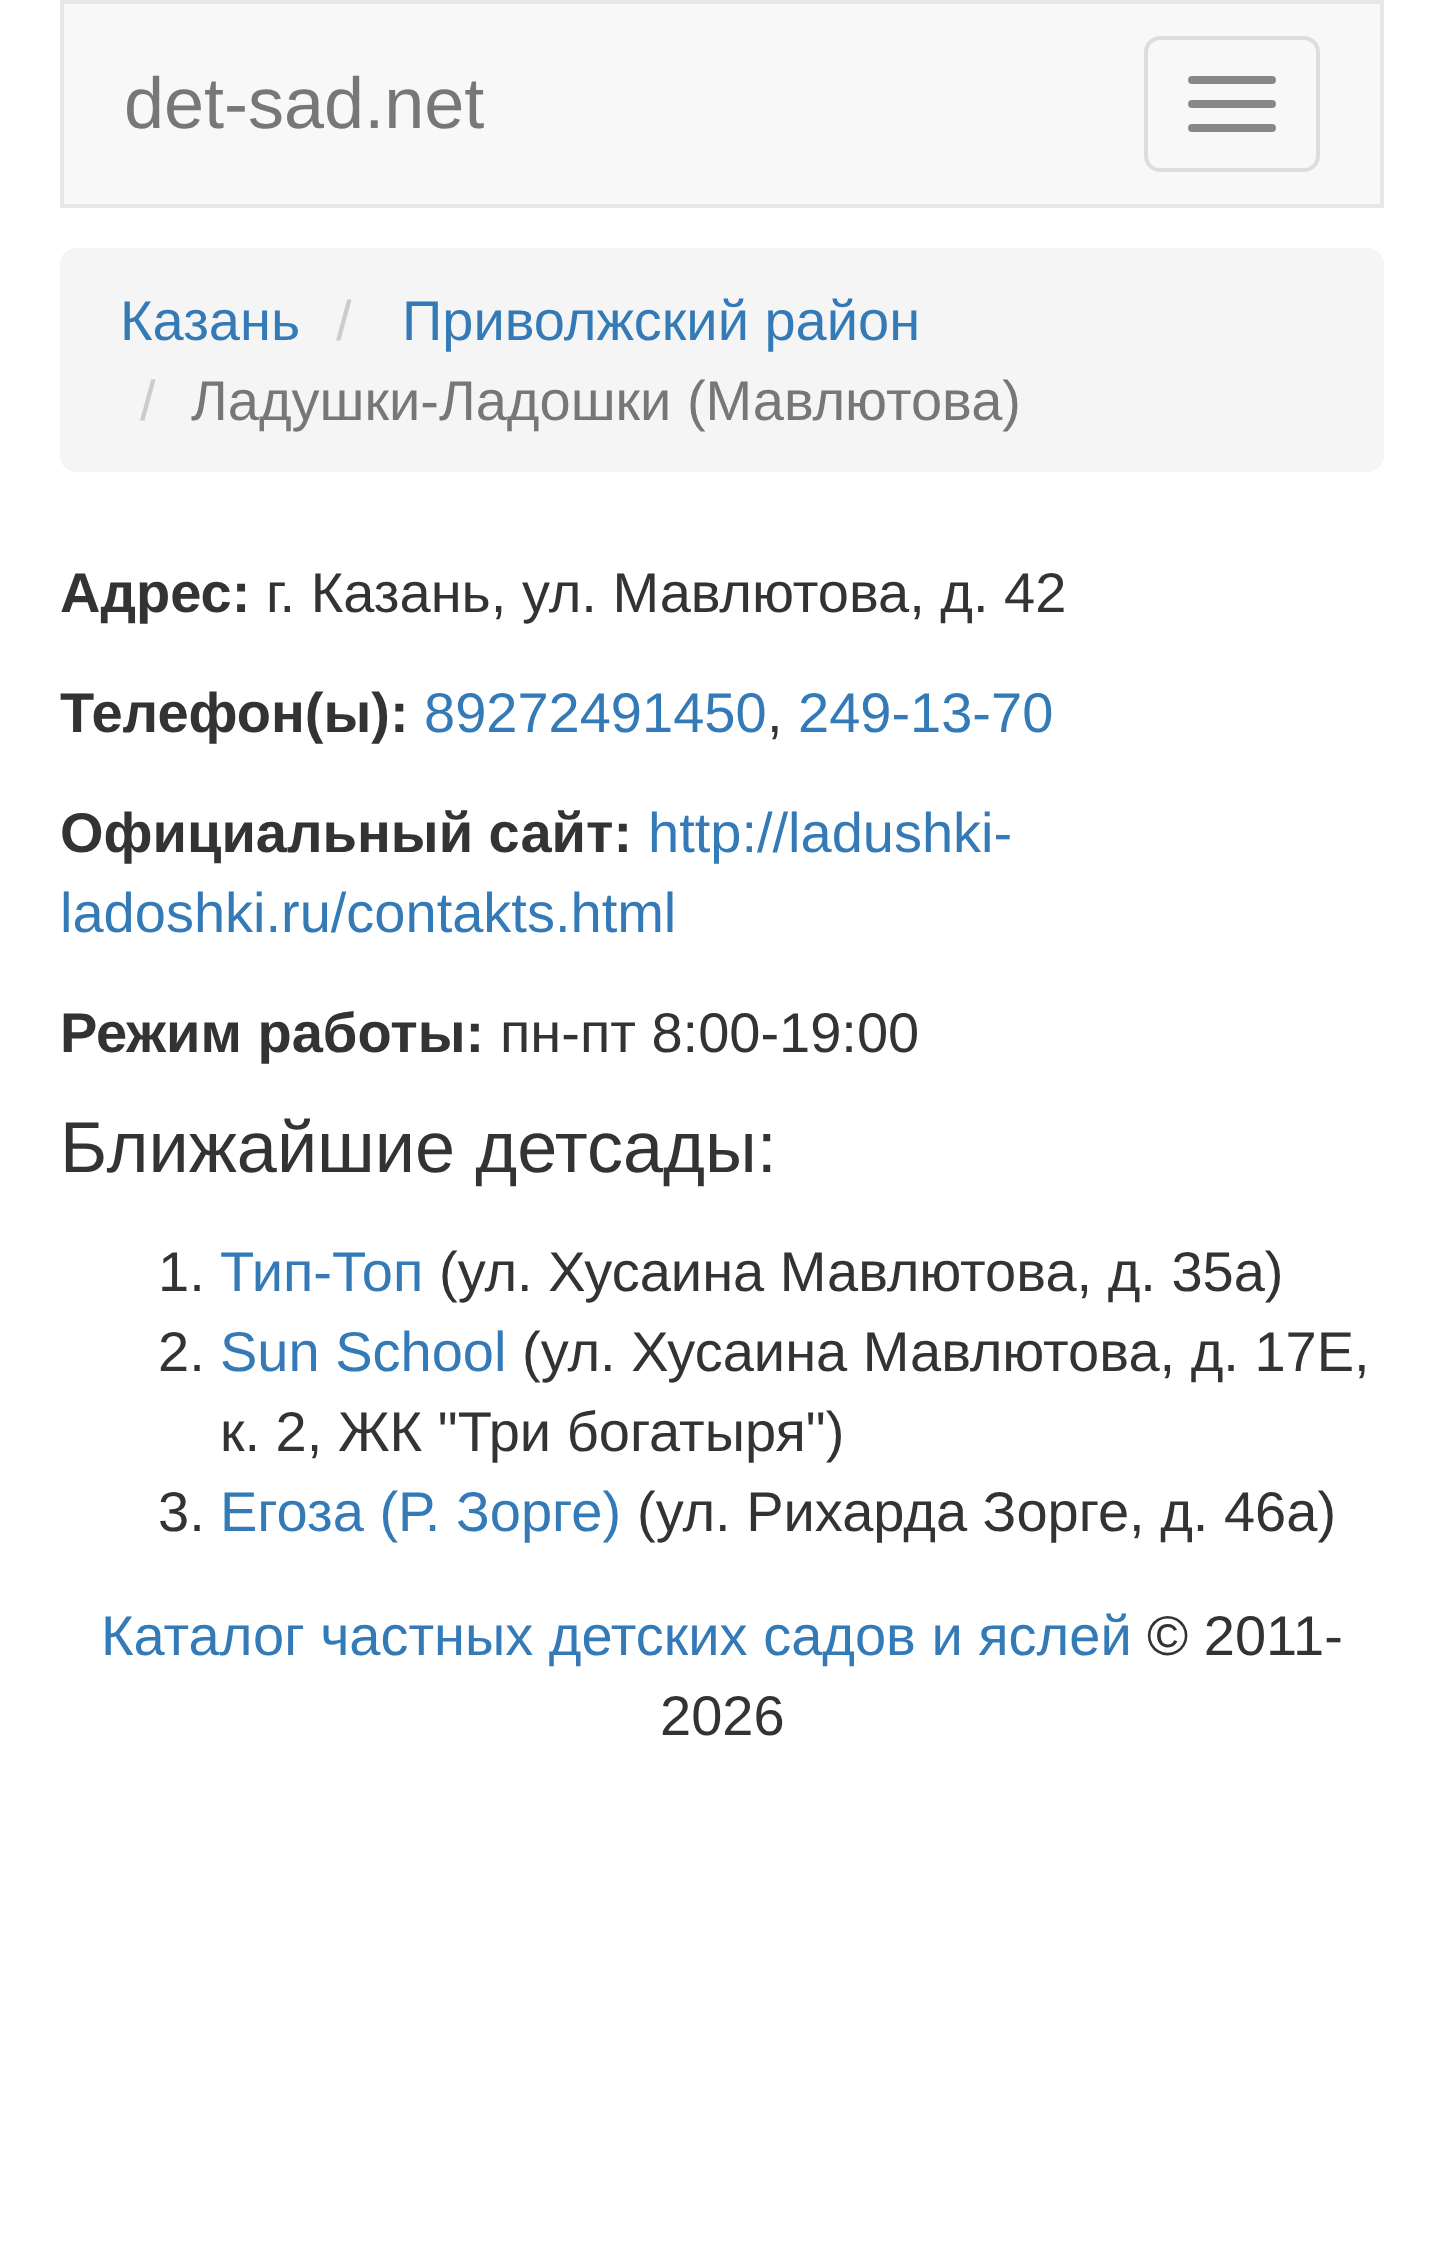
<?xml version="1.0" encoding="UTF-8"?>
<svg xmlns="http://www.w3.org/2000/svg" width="1443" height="2241">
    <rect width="100%" height="100%" fill="#FFFFFF"/>
    <rect x="62" y="2" width="1320" height="204" fill="#F8F8F8" stroke="#E7E7E7" stroke-width="4"/>
    <text x="124" y="128" font-family="Liberation Sans" font-size="72" fill="#777777">det-sad.net</text>
    <rect x="1146" y="38" width="172" height="132" rx="14" fill="none" stroke="#DDDDDD" stroke-width="4"/>
    <rect x="1188" y="76" width="88" height="8" rx="4" fill="#888888"/>
    <rect x="1188" y="100" width="88" height="8" rx="4" fill="#888888"/>
    <rect x="1188" y="124" width="88" height="8" rx="4" fill="#888888"/>
    <rect x="60" y="248" width="1324" height="224" rx="16" fill="#F5F5F5"/>
    <text x="120" y="340" font-family="Liberation Sans" font-size="56" fill="#337AB7">Казань</text>
    <text x="336" y="340" font-family="Liberation Sans" font-size="56" fill="#CCCCCC">/</text>
    <text x="402" y="340" font-family="Liberation Sans" font-size="56" fill="#337AB7">Приволжский район</text>
    <text x="140" y="420" font-family="Liberation Sans" font-size="56" fill="#CCCCCC">/</text>
    <text x="191" y="420" font-family="Liberation Sans" font-size="56" fill="#777777">Ладушки-Ладошки (Мавлютова)</text>
    <text x="60" y="612" font-family="Liberation Sans" font-size="56" font-weight="700" fill="#333333">Адрес:</text>
    <text x="266" y="612" font-family="Liberation Sans" font-size="56" fill="#333333">г. Казань, ул. Мавлютова, д. 42</text>
    <text x="60" y="732" font-family="Liberation Sans" font-size="56" font-weight="700" fill="#333333">Телефон(ы):</text>
    <text x="424" y="732" font-family="Liberation Sans" font-size="56" fill="#337AB7">89272491450</text>
    <text x="767" y="732" font-family="Liberation Sans" font-size="56" fill="#333333">,</text>
    <text x="798" y="732" font-family="Liberation Sans" font-size="56" fill="#337AB7">249-13-70</text>
    <text x="60" y="852" font-family="Liberation Sans" font-size="56" font-weight="700" fill="#333333">Официальный сайт:</text>
    <text x="648" y="852" font-family="Liberation Sans" font-size="56" fill="#337AB7">http://ladushki-</text>
    <text x="60" y="932" font-family="Liberation Sans" font-size="56" fill="#337AB7">ladoshki.ru/contakts.html</text>
    <text x="60" y="1052" font-family="Liberation Sans" font-size="56" font-weight="700" fill="#333333">Режим работы:</text>
    <text x="500" y="1052" font-family="Liberation Sans" font-size="56" fill="#333333">пн-пт 8:00-19:00</text>
    <text x="60" y="1172" font-family="Liberation Sans" font-size="72" fill="#333333">Ближайшие детсады:</text>
    <text x="158" y="1291" font-family="Liberation Sans" font-size="56" fill="#333333">1.</text>
    <text x="220" y="1291" font-family="Liberation Sans" font-size="56" fill="#337AB7">Тип-Топ</text>
    <text x="439" y="1291" font-family="Liberation Sans" font-size="56" fill="#333333">(ул. Хусаина Мавлютова, д. 35а)</text>
    <text x="158" y="1371" font-family="Liberation Sans" font-size="56" fill="#333333">2.</text>
    <text x="220" y="1371" font-family="Liberation Sans" font-size="56" fill="#337AB7">Sun School</text>
    <text x="522" y="1371" font-family="Liberation Sans" font-size="56" fill="#333333">(ул. Хусаина Мавлютова, д. 17Е,</text>
    <text x="220" y="1451" font-family="Liberation Sans" font-size="56" fill="#333333">к. 2, ЖК "Три богатыря")</text>
    <text x="158" y="1531" font-family="Liberation Sans" font-size="56" fill="#333333">3.</text>
    <text x="220" y="1531" font-family="Liberation Sans" font-size="56" fill="#337AB7">Егоза (Р. Зорге)</text>
    <text x="637" y="1531" font-family="Liberation Sans" font-size="56" fill="#333333">(ул. Рихарда Зорге, д. 46а)</text>
    <text x="101" y="1655" font-family="Liberation Sans" font-size="56" fill="#337AB7">Каталог частных детских садов и яслей</text>
    <text x="1147" y="1655" font-family="Liberation Sans" font-size="56" fill="#333333">© 2011-</text>
    <text x="660" y="1735" font-family="Liberation Sans" font-size="56" fill="#333333">2026</text>
</svg>
